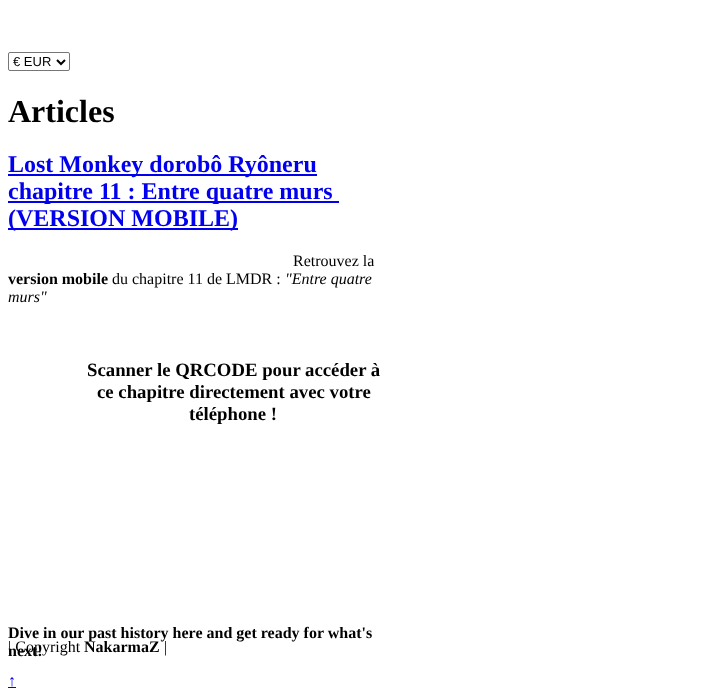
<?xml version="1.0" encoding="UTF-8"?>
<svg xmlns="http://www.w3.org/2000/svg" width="711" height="692">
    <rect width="100%" height="100%" fill="#FFFFFF"/>
    <rect x="8.5" y="52.5" width="61" height="18" rx="1.5" fill="none" stroke="#767676"/>
    <path d="M 57 60 L 61 64 L 65 60" fill="none" stroke="#000000" stroke-width="2"/>
    <text x="13" y="66" font-family="Liberation Sans" font-size="13" fill="#000000">€ EUR</text>
    <text x="8" y="638" font-family="Liberation Serif" font-size="16" font-weight="700" fill="#000000">Dive in our past history here and get ready for what's</text>
    <text x="8" y="652" font-family="Liberation Serif" font-size="16" fill="#000000">| Copyright</text>
    <text x="8" y="656" font-family="Liberation Serif" font-size="16" font-weight="700" fill="#000000">next!</text>
    <text x="8" y="122" font-family="Liberation Serif" font-size="32" font-weight="700" fill="#000000">Articles</text>
    <rect x="8" y="174" width="309" height="2" fill="#0000EE"/>
    <text x="8" y="172" font-family="Liberation Serif" font-size="24" font-weight="700" fill="#0000EE">Lost Monkey dorobô Ryôneru</text>
    <rect x="8" y="201" width="331" height="2" fill="#0000EE"/>
    <text x="8" y="199" font-family="Liberation Serif" font-size="24" font-weight="700" fill="#0000EE">chapitre 11 : Entre quatre murs</text>
    <rect x="8" y="228" width="230" height="2" fill="#0000EE"/>
    <text x="8" y="226" font-family="Liberation Serif" font-size="24" font-weight="700" fill="#0000EE">(VERSION MOBILE)</text>
    <text x="293" y="266" font-family="Liberation Serif" font-size="16" fill="#000000">Retrouvez la</text>
    <text x="8" y="284" font-family="Liberation Serif" font-size="16" font-weight="700" fill="#000000">version mobile</text>
    <text x="112" y="284" font-family="Liberation Serif" font-size="16" fill="#000000">du chapitre 11 de LMDR :</text>
    <text x="285" y="284" font-family="Liberation Serif" font-size="16" font-style="italic" fill="#000000">"Entre quatre</text>
    <text x="8" y="302" font-family="Liberation Serif" font-size="16" font-style="italic" fill="#000000">murs"</text>
    <text x="87" y="376" font-family="Liberation Serif" font-size="18.75" font-weight="700" fill="#000000">Scanner le QRCODE pour accéder à</text>
    <text x="97" y="398" font-family="Liberation Serif" font-size="18.75" font-weight="700" fill="#000000">ce chapitre directement avec votre</text>
    <text x="189" y="420" font-family="Liberation Serif" font-size="18.75" font-weight="700" fill="#000000">téléphone !</text>
    <text x="84" y="652" font-family="Liberation Serif" font-size="16" font-weight="700" fill="#000000">NakarmaZ</text>
    <text x="164" y="652" font-family="Liberation Serif" font-size="16" fill="#000000">|</text>
    <text x="8" y="686" font-family="Liberation Serif" font-size="16" fill="#0000EE">↑</text>
    <rect x="8" y="687" width="8" height="1" fill="#0000EE"/>
</svg>
